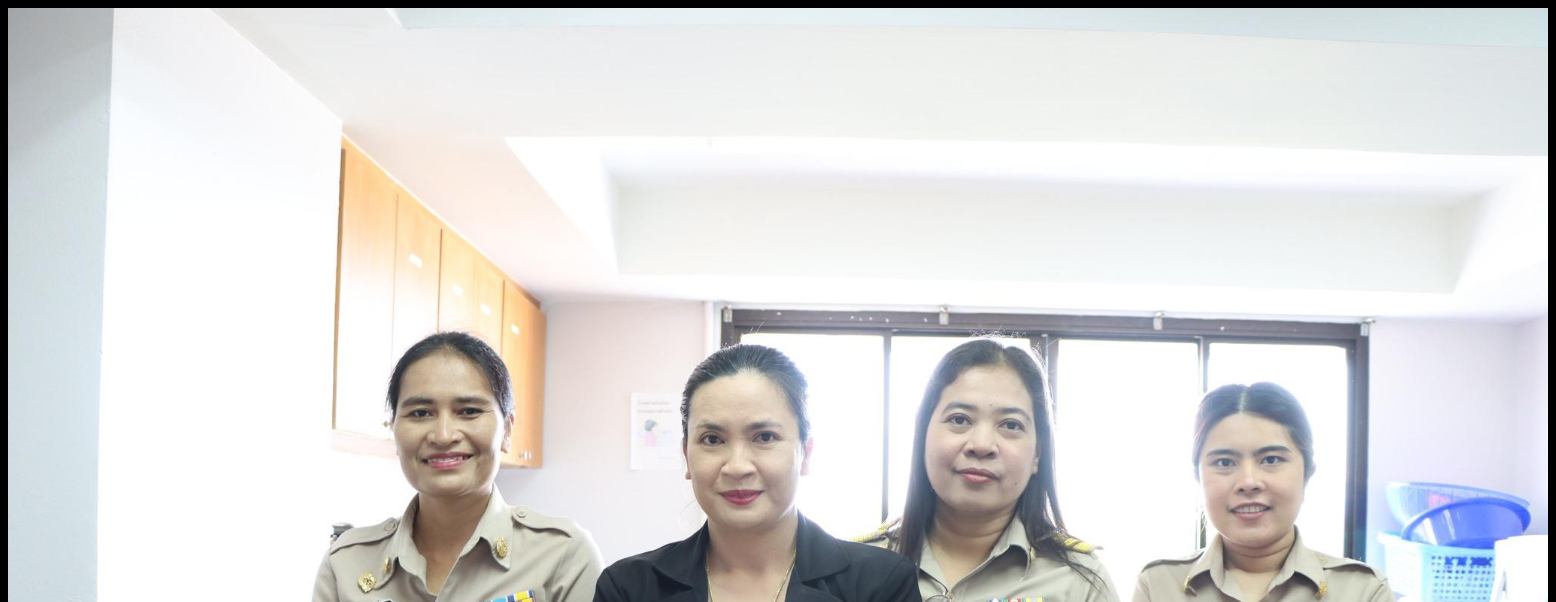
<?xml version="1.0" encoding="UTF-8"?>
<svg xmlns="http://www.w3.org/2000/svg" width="1556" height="602">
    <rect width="100%" height="100%" fill="#000000"/>
    <image x="8" y="8" width="1540" height="594" href="img_01.png"/>
</svg>
